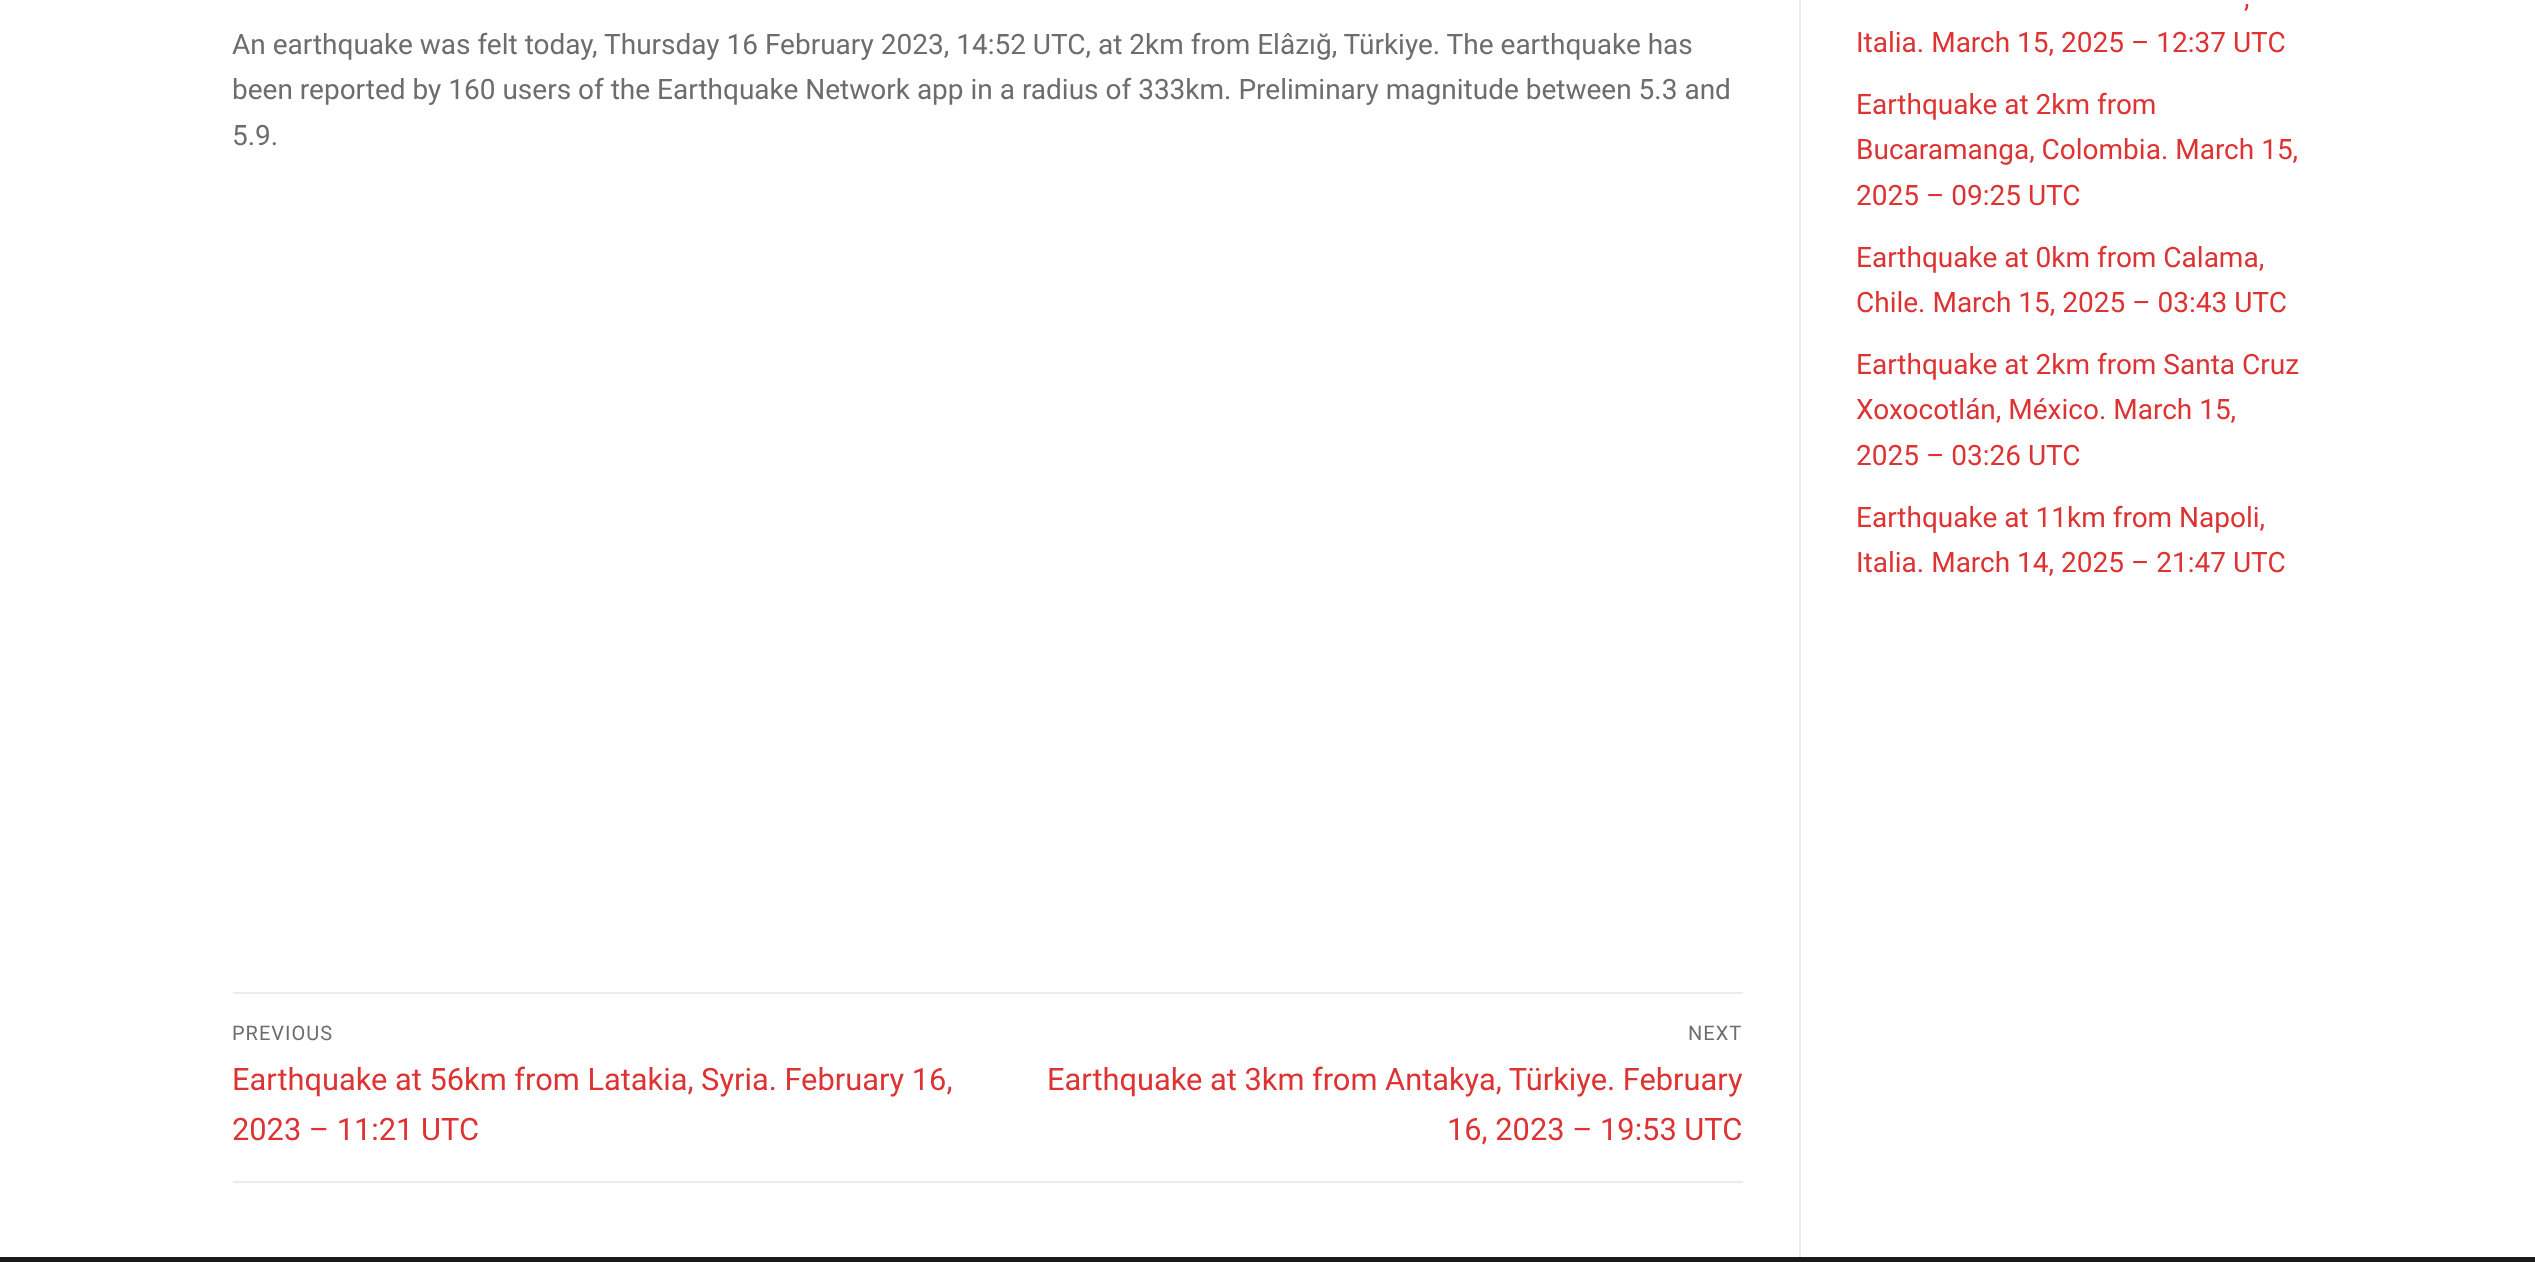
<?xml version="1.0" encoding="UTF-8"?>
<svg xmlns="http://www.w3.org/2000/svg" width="2535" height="1262">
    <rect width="100%" height="100%" fill="#FFFFFF"/>
    <rect x="1799" y="0" width="2" height="1257" fill="#EAECEE"/>
    <text font-family="Roboto" font-size="28" fill="#6D6D6D">
        <tspan x="232" y="54">An earthquake was felt today, Thursday 16 February 2023, 14:52 UTC, at 2km from Elâzığ, Türkiye. The earthquake has</tspan>
        <tspan x="232" y="99">been reported by 160 users of the Earthquake Network app in a radius of 333km. Preliminary magnitude between 5.3 and</tspan>
        <tspan x="232" y="145">5.9.</tspan>
    </text>
    <rect x="233" y="992" width="1510" height="2" fill="#EAECEE"/>
    <rect x="233" y="1181" width="1510" height="2" fill="#EAECEE"/>
    <text x="232" y="1040" font-family="Roboto" font-size="20" letter-spacing="1" fill="#6D6D6D">PREVIOUS</text>
    <text font-family="Roboto" font-size="30.8" fill="#DD3333">
        <tspan x="232" y="1090">Earthquake at 56km from Latakia, Syria. February 16,</tspan>
        <tspan x="232" y="1140">2023 – 11:21 UTC</tspan>
    </text>
    <text x="1688" y="1040" font-family="Roboto" font-size="20" letter-spacing="1" fill="#6D6D6D">NEXT</text>
    <text x="1047" y="1090" font-family="Roboto" font-size="30.8" fill="#DD3333">Earthquake at 3km from Antakya, Türkiye. February</text>
    <text x="1447" y="1140" font-family="Roboto" font-size="30.8" fill="#DD3333">16, 2023 – 19:53 UTC</text>
    <text x="2244" y="7" font-family="Roboto" font-size="28" fill="#DD3333">,</text>
    <text x="1856" y="52" font-family="Roboto" font-size="28" fill="#DD3333">Italia. March 15, 2025 – 12:37 UTC</text>
    <text font-family="Roboto" font-size="28" fill="#DD3333">
        <tspan x="1856" y="114">Earthquake at 2km from</tspan>
        <tspan x="1856" y="159">Bucaramanga, Colombia. March 15,</tspan>
        <tspan x="1856" y="205">2025 – 09:25 UTC</tspan>
    </text>
    <text font-family="Roboto" font-size="28" fill="#DD3333">
        <tspan x="1856" y="267">Earthquake at 0km from Calama,</tspan>
        <tspan x="1856" y="312">Chile. March 15, 2025 – 03:43 UTC</tspan>
    </text>
    <text font-family="Roboto" font-size="28" fill="#DD3333">
        <tspan x="1856" y="374">Earthquake at 2km from Santa Cruz</tspan>
        <tspan x="1856" y="419">Xoxocotlán, México. March 15,</tspan>
        <tspan x="1856" y="465">2025 – 03:26 UTC</tspan>
    </text>
    <text font-family="Roboto" font-size="28" fill="#DD3333">
        <tspan x="1856" y="527">Earthquake at 11km from Napoli,</tspan>
        <tspan x="1856" y="572">Italia. March 14, 2025 – 21:47 UTC</tspan>
    </text>
    <rect x="0" y="1257" width="2535" height="5" fill="#1A1A1A"/>
</svg>
